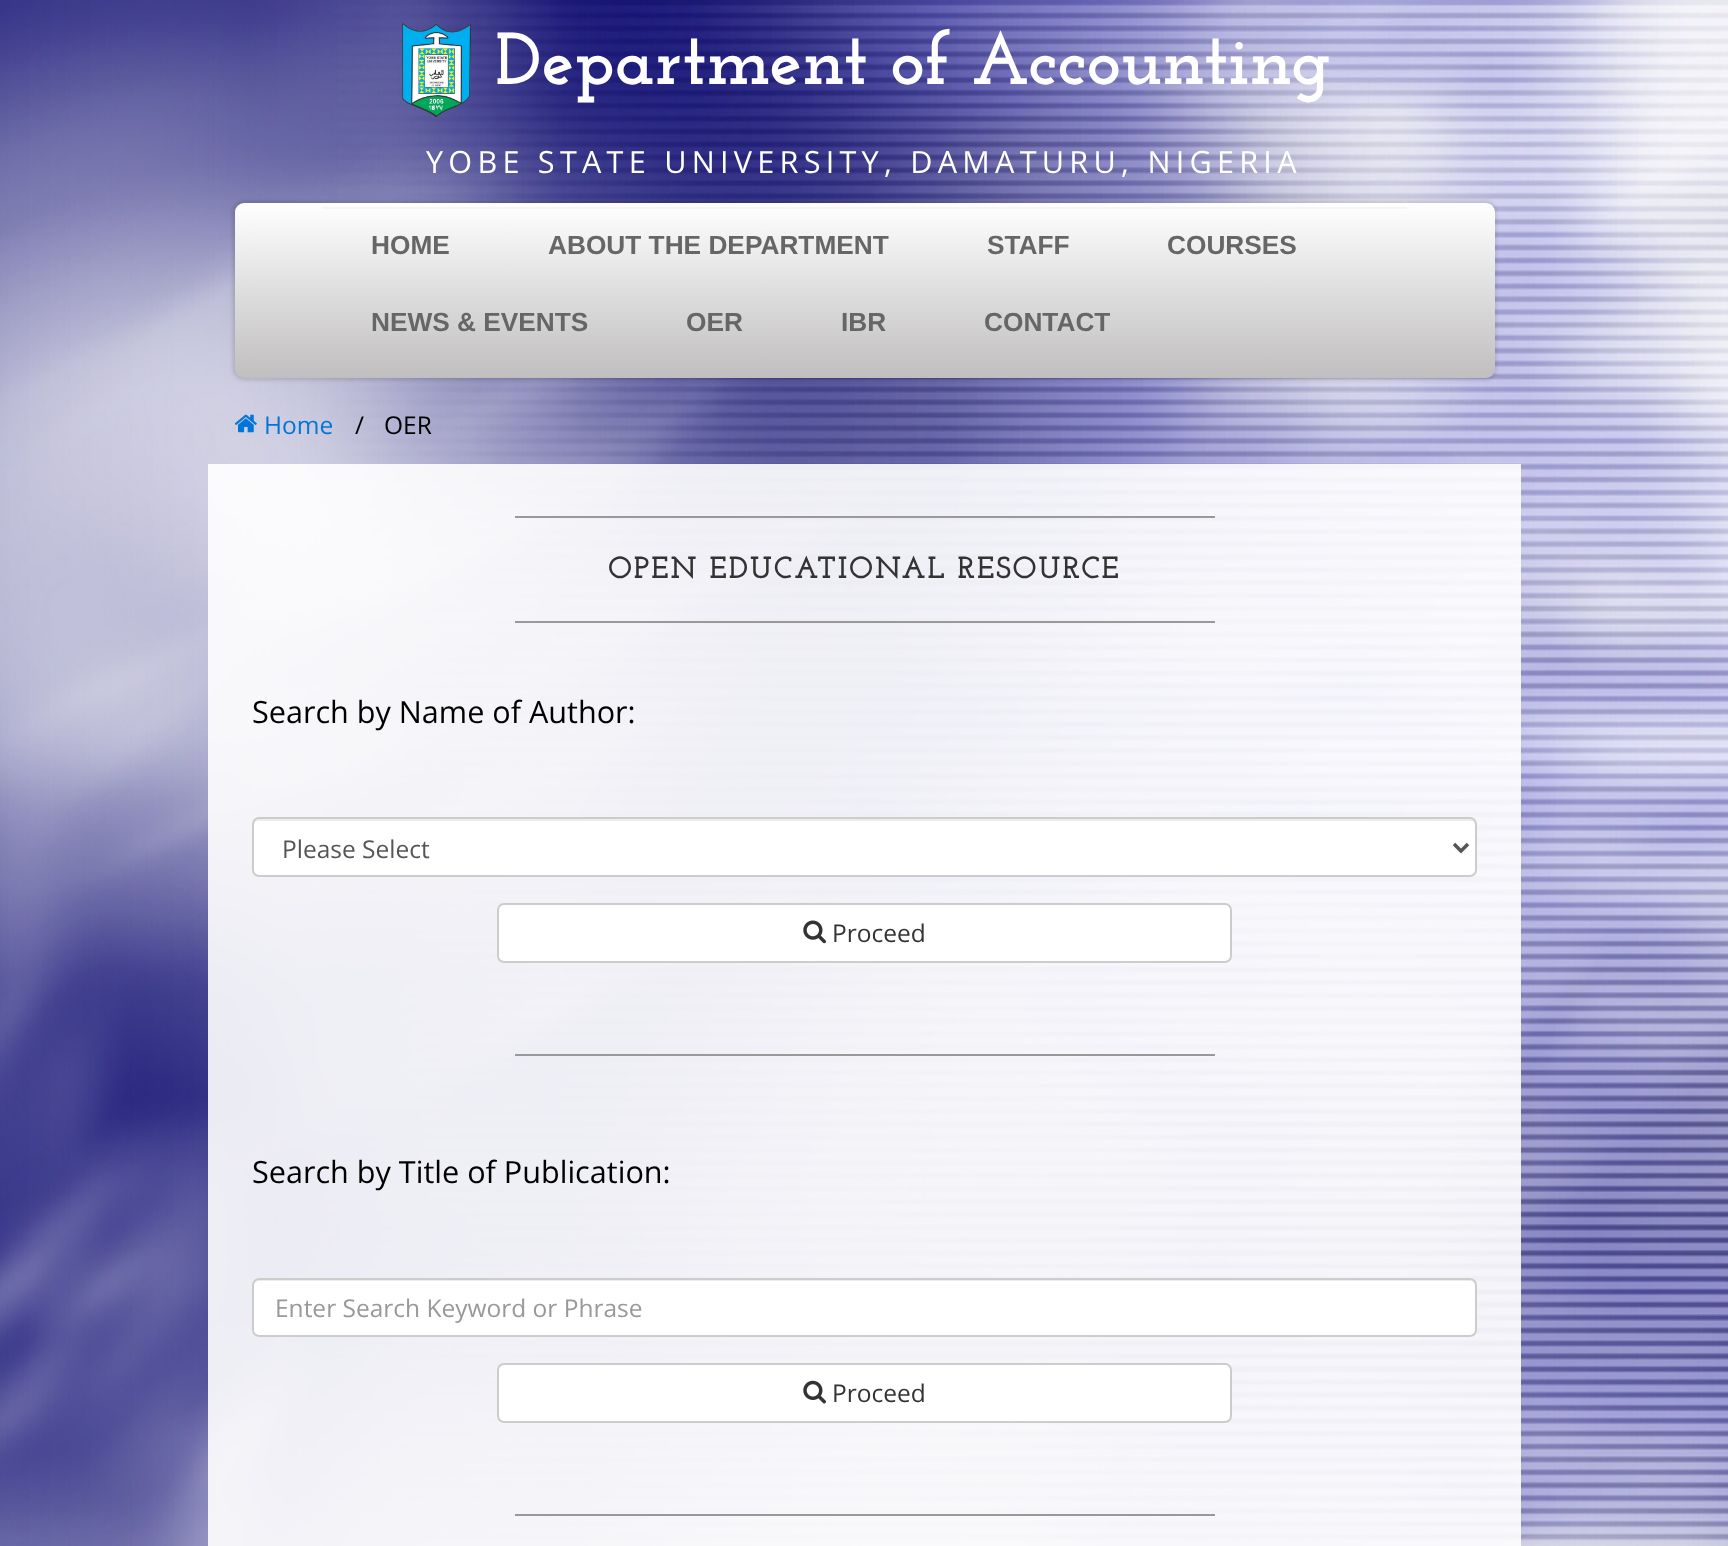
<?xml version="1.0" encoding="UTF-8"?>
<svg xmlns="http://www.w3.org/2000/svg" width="1728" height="1546">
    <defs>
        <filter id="blur1" x="-50%" y="-200%" width="200%" height="500%"><feGaussianBlur stdDeviation="2"/></filter>
        <linearGradient id="g1" gradientUnits="userSpaceOnUse" x1="865" y1="203" x2="865" y2="378"><stop offset="0" stop-color="#FFFFFF"/><stop offset="1" stop-color="#C0BEBF"/></linearGradient>
    </defs>
    <rect width="100%" height="100%" fill="#FFFFFF"/>
    <image x="0" y="0" width="1728" height="1546" href="img_01.png"/>
    <image x="402" y="23" width="70" height="95" href="img_02.png"/>
    <text x="495" y="84" font-family="Josefin Slab" font-size="73.5" font-weight="700" fill="#FFFFFF">Department of Accounting</text>
    <text x="426" y="173" font-family="Open Sans" font-size="30.6" letter-spacing="5.25" fill="#FFFFFF">YOBE STATE UNIVERSITY, DAMATURU, NIGERIA</text>
    <rect x="233" y="201" width="1263" height="179" rx="11" fill="#000000" fill-opacity="0.15" filter="url(#blur1)"/>
    <rect x="235" y="203" width="1260" height="175" rx="9" fill="url(#g1)"/>
    <rect x="322" y="207" width="1085" height="2" fill="#F5F5F5"/>
    <text x="371" y="254" font-family="Liberation Sans" font-size="26.25" font-weight="700" fill="#666666">HOME</text>
    <text x="548" y="254" font-family="Liberation Sans" font-size="26.25" font-weight="700" fill="#666666">ABOUT THE DEPARTMENT</text>
    <text x="987" y="254" font-family="Liberation Sans" font-size="26.25" font-weight="700" fill="#666666">STAFF</text>
    <text x="1167" y="254" font-family="Liberation Sans" font-size="26.25" font-weight="700" fill="#666666">COURSES</text>
    <text x="371" y="331" font-family="Liberation Sans" font-size="26.25" font-weight="700" fill="#666666">NEWS &amp; EVENTS</text>
    <text x="686" y="331" font-family="Liberation Sans" font-size="26.25" font-weight="700" fill="#666666">OER</text>
    <text x="841" y="331" font-family="Liberation Sans" font-size="26.25" font-weight="700" fill="#666666">IBR</text>
    <text x="984" y="331" font-family="Liberation Sans" font-size="26.25" font-weight="700" fill="#666666">CONTACT</text>
    <image x="234" y="414" width="23" height="19" href="img_03.png"/>
    <text x="264" y="434" font-family="Open Sans" font-size="24.5" fill="#0275D8">Home</text>
    <text x="355" y="434" font-family="Open Sans" font-size="24.5" fill="#000000">/</text>
    <text x="384" y="434" font-family="Open Sans" font-size="24.5" fill="#000000">OER</text>
    <rect x="208" y="464" width="1313" height="1082" fill="#FFFFFF" fill-opacity="0.9"/>
    <rect x="515" y="516" width="700" height="2" fill="#999999"/>
    <text x="608" y="578" font-family="Josefin Slab" font-size="30.6" font-weight="700" letter-spacing="1.75" fill="#333333">OPEN EDUCATIONAL RESOURCE</text>
    <rect x="515" y="621" width="700" height="2" fill="#999999"/>
    <text x="252" y="723" font-family="Open Sans" font-size="30.6" fill="#000000">Search by Name of Author:</text>
    <rect x="252" y="817" width="1225" height="60" rx="7" fill="#FFFFFF"/>
    <path d="M 259 821 H 1470 C 1473 821 1475 823 1475 826 V 824 C 1475 821 1473 819 1470 819 H 259 C 256 819 254 821 254 824 V 826 C 254 823 256 821 259 821 Z" fill="#ECECEC"/>
    <rect x="253" y="818" width="1223" height="58" rx="6" fill="none" stroke="#CCCCCC" stroke-width="2"/>
    <path d="M 1454 844 L 1461 851 L 1468 844" fill="none" stroke="#555555" stroke-width="3.5"/>
    <text x="282" y="858" font-family="Open Sans" font-size="24.5" fill="#555555">Please Select</text>
    <rect x="498" y="904" width="733" height="58" rx="6" fill="#FFFFFF" stroke="#CCCCCC" stroke-width="2"/>
    <image x="803" y="920" width="23" height="24" href="img_04.png"/>
    <text x="832" y="942" font-family="Open Sans" font-size="24.5" fill="#333333">Proceed</text>
    <rect x="515" y="1054" width="700" height="2" fill="#999999"/>
    <text x="252" y="1183" font-family="Open Sans" font-size="30.6" fill="#000000">Search by Title of Publication:</text>
    <rect x="252" y="1278" width="1225" height="59" rx="7" fill="#FFFFFF"/>
    <path d="M 259 1281 H 1470 C 1473 1281 1475 1283 1475 1286 V 1284 C 1475 1281 1473 1279 1470 1279 H 259 C 256 1279 254 1281 254 1284 V 1286 C 254 1283 256 1281 259 1281 Z" fill="#ECECEC"/>
    <rect x="253" y="1279" width="1223" height="57" rx="6" fill="none" stroke="#CCCCCC" stroke-width="2"/>
    <text x="275" y="1317" font-family="Open Sans" font-size="24.5" fill="#999999">Enter Search Keyword or Phrase</text>
    <rect x="498" y="1364" width="733" height="58" rx="6" fill="#FFFFFF" stroke="#CCCCCC" stroke-width="2"/>
    <image x="803" y="1380" width="23" height="24" href="img_05.png"/>
    <text x="832" y="1402" font-family="Open Sans" font-size="24.5" fill="#333333">Proceed</text>
    <rect x="515" y="1514" width="700" height="2" fill="#999999"/>
</svg>
